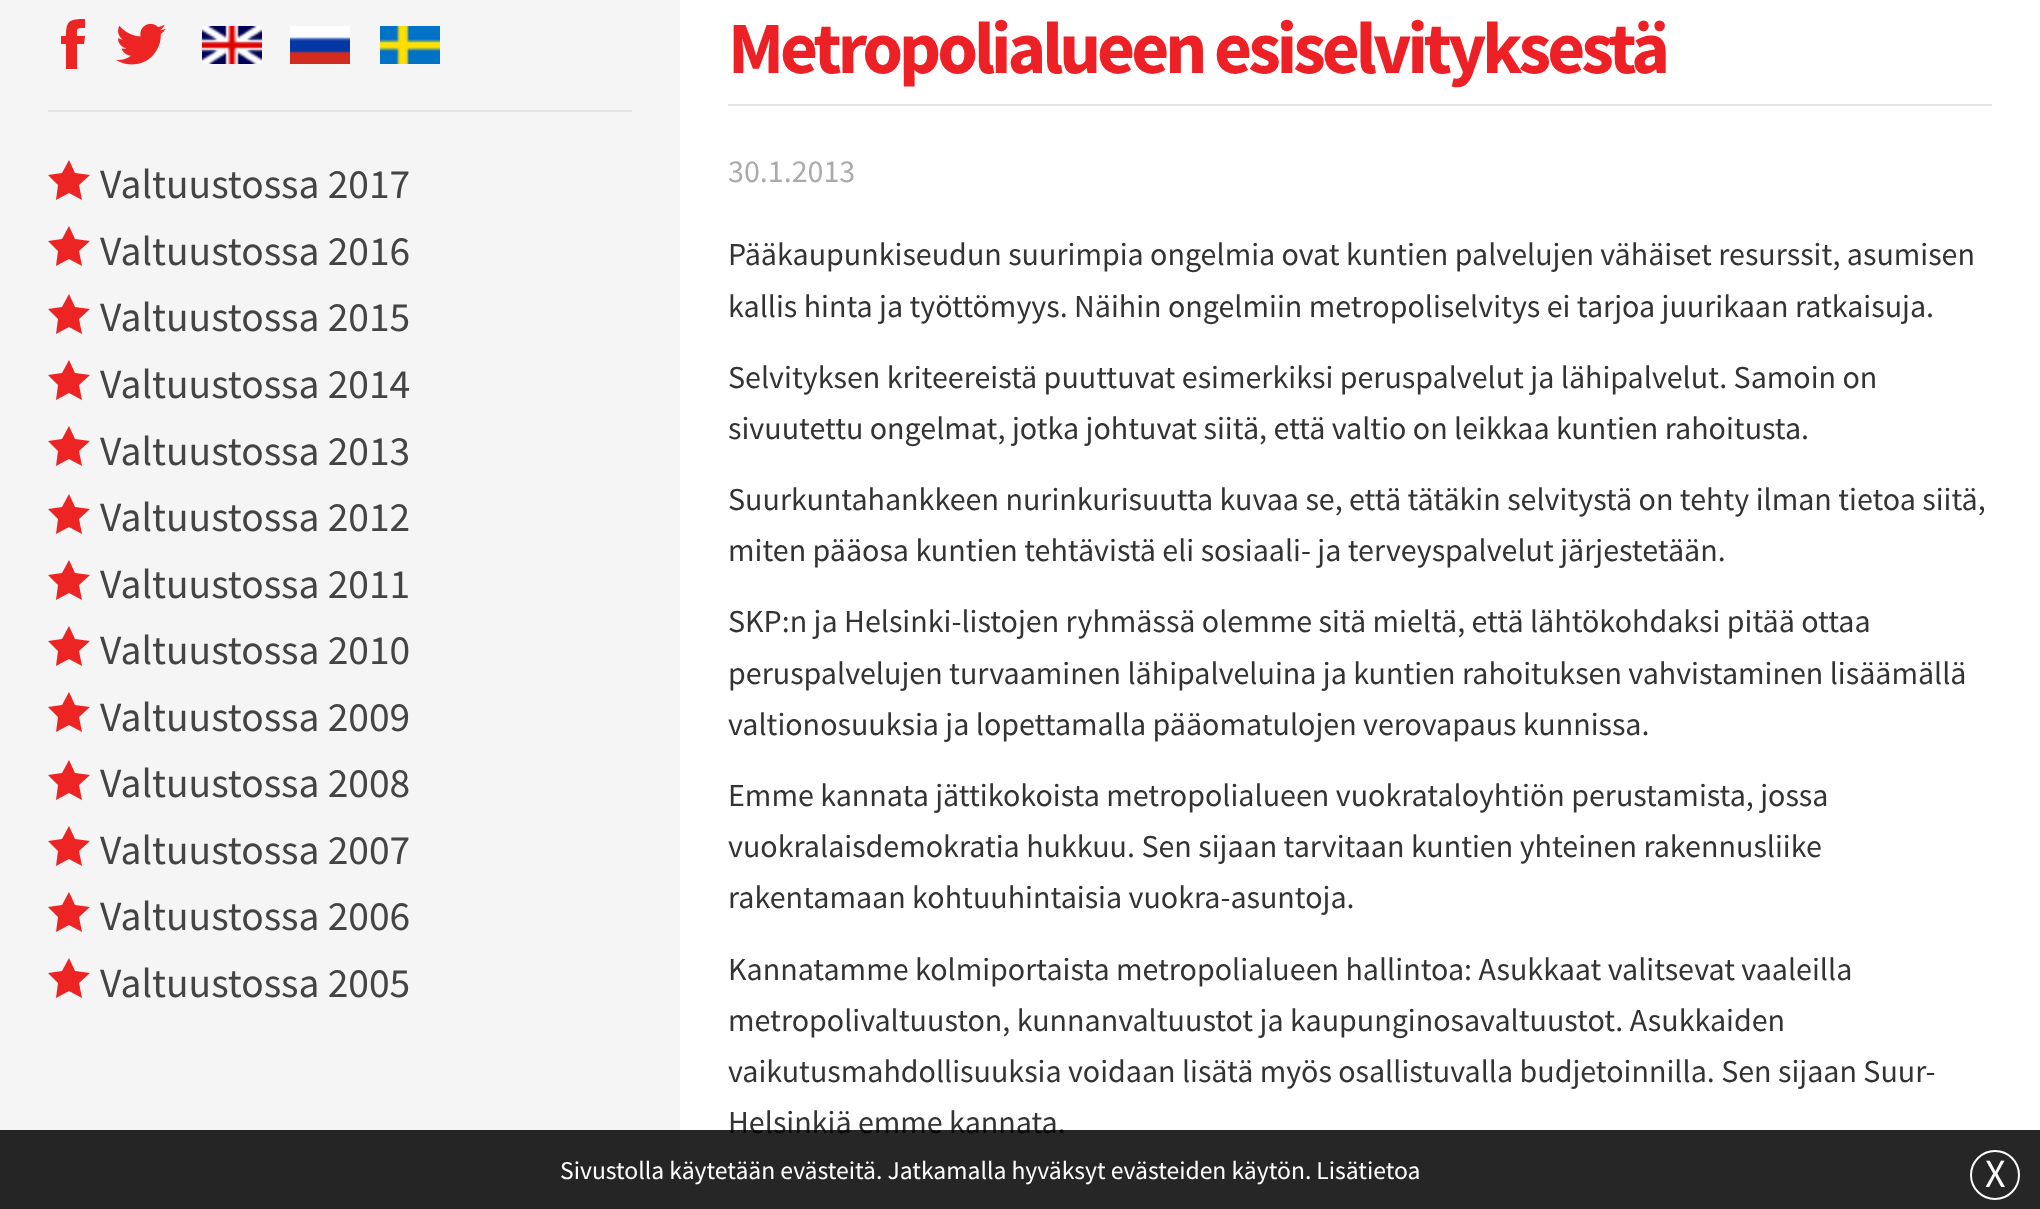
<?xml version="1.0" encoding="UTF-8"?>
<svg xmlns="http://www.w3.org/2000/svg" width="2040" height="1209">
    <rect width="100%" height="100%" fill="#FFFFFF"/>
    <rect x="0" y="0" width="680" height="1209" fill="#F5F5F5"/>
    <rect x="48" y="110" width="584" height="2" fill="#E4E4E4"/>
    <path d="M 77 36 H 85 L 84 44 H 77 V 69 H 66 V 44 H 61 V 36 H 66 C 66 20 70 19 85 19 V 28 C 76 28 77 28 77 36 Z" fill="#ED2424"/>
    <image x="116" y="23" width="50" height="42" href="img_01.png"/>
    <image x="202" y="26" width="60" height="38" href="img_02.png"/>
    <image x="290" y="26" width="60" height="38" href="img_03.png"/>
    <image x="380" y="26" width="60" height="38" href="img_04.png"/>
    <text x="100" y="198" font-family="Source Sans Pro" font-size="41.5" fill="#444444">Valtuustossa 2017</text>
    <path d="M 90 175 L 75 173 L 69 160 L 62 173 L 48 175 L 58 185 L 56 200 L 69 193 L 82 200 L 79 185 Z" fill="#ED2424"/>
    <text x="100" y="265" font-family="Source Sans Pro" font-size="41.5" fill="#444444">Valtuustossa 2016</text>
    <path d="M 90 241 L 75 239 L 69 226 L 62 239 L 48 241 L 58 251 L 56 266 L 69 259 L 82 266 L 79 251 Z" fill="#ED2424"/>
    <text x="100" y="331" font-family="Source Sans Pro" font-size="41.5" fill="#444444">Valtuustossa 2015</text>
    <path d="M 90 309 L 75 307 L 69 294 L 62 307 L 48 309 L 58 319 L 56 334 L 69 327 L 82 334 L 79 319 Z" fill="#ED2424"/>
    <text x="100" y="398" font-family="Source Sans Pro" font-size="41.5" fill="#444444">Valtuustossa 2014</text>
    <path d="M 90 375 L 75 373 L 69 360 L 62 373 L 48 375 L 58 385 L 56 400 L 69 393 L 82 400 L 79 385 Z" fill="#ED2424"/>
    <text x="100" y="465" font-family="Source Sans Pro" font-size="41.5" fill="#444444">Valtuustossa 2013</text>
    <path d="M 90 441 L 75 439 L 69 426 L 62 439 L 48 441 L 58 451 L 56 466 L 69 459 L 82 466 L 79 451 Z" fill="#ED2424"/>
    <text x="100" y="531" font-family="Source Sans Pro" font-size="41.5" fill="#444444">Valtuustossa 2012</text>
    <path d="M 90 509 L 75 507 L 69 494 L 62 507 L 48 509 L 58 519 L 56 534 L 69 527 L 82 534 L 79 519 Z" fill="#ED2424"/>
    <text x="100" y="598" font-family="Source Sans Pro" font-size="41.5" fill="#444444">Valtuustossa 2011</text>
    <path d="M 90 575 L 75 573 L 69 560 L 62 573 L 48 575 L 58 585 L 56 600 L 69 593 L 82 600 L 79 585 Z" fill="#ED2424"/>
    <text x="100" y="664" font-family="Source Sans Pro" font-size="41.5" fill="#444444">Valtuustossa 2010</text>
    <path d="M 90 641 L 75 639 L 69 626 L 62 639 L 48 641 L 58 651 L 56 666 L 69 659 L 82 666 L 79 651 Z" fill="#ED2424"/>
    <text x="100" y="731" font-family="Source Sans Pro" font-size="41.5" fill="#444444">Valtuustossa 2009</text>
    <path d="M 90 707 L 75 705 L 69 692 L 62 705 L 48 707 L 58 717 L 56 732 L 69 725 L 82 732 L 79 717 Z" fill="#ED2424"/>
    <text x="100" y="797" font-family="Source Sans Pro" font-size="41.5" fill="#444444">Valtuustossa 2008</text>
    <path d="M 90 775 L 75 773 L 69 760 L 62 773 L 48 775 L 58 785 L 56 800 L 69 793 L 82 800 L 79 785 Z" fill="#ED2424"/>
    <text x="100" y="864" font-family="Source Sans Pro" font-size="41.5" fill="#444444">Valtuustossa 2007</text>
    <path d="M 90 841 L 75 839 L 69 826 L 62 839 L 48 841 L 58 851 L 56 866 L 69 859 L 82 866 L 79 851 Z" fill="#ED2424"/>
    <text x="100" y="930" font-family="Source Sans Pro" font-size="41.5" fill="#444444">Valtuustossa 2006</text>
    <path d="M 90 907 L 75 905 L 69 892 L 62 905 L 48 907 L 58 917 L 56 932 L 69 925 L 82 932 L 79 917 Z" fill="#ED2424"/>
    <text x="100" y="997" font-family="Source Sans Pro" font-size="41.5" fill="#444444">Valtuustossa 2005</text>
    <path d="M 90 973 L 75 971 L 69 958 L 62 971 L 48 973 L 58 983 L 56 998 L 69 991 L 82 998 L 79 983 Z" fill="#ED2424"/>
    <rect x="728" y="104" width="1264" height="2" fill="#E4E4E4"/>
    <text x="728" y="73" font-family="Source Sans Pro" font-size="73.6" font-weight="700" letter-spacing="-4" fill="#ED2025">Metropolialueen esiselvityksestä</text>
    <text x="728" y="182" font-family="Source Sans Pro" font-size="32" fill="#AAAAAA">30.1.2013</text>
    <text font-family="Source Sans Pro" font-size="32" fill="#333333">
        <tspan x="728" y="265">Pääkaupunkiseudun suurimpia ongelmia ovat kuntien palvelujen vähäiset resurssit, asumisen</tspan>
        <tspan x="728" y="317">kallis hinta ja työttömyys. Näihin ongelmiin metropoliselvitys ei tarjoa juurikaan ratkaisuja.</tspan>
    </text>
    <text font-family="Source Sans Pro" font-size="32" fill="#333333">
        <tspan x="728" y="388">Selvityksen kriteereistä puuttuvat esimerkiksi peruspalvelut ja lähipalvelut. Samoin on</tspan>
        <tspan x="728" y="439">sivuutettu ongelmat, jotka johtuvat siitä, että valtio on leikkaa kuntien rahoitusta.</tspan>
    </text>
    <text font-family="Source Sans Pro" font-size="32" fill="#333333">
        <tspan x="728" y="510">Suurkuntahankkeen nurinkurisuutta kuvaa se, että tätäkin selvitystä on tehty ilman tietoa siitä,</tspan>
        <tspan x="728" y="561">miten pääosa kuntien tehtävistä eli sosiaali- ja terveyspalvelut järjestetään.</tspan>
    </text>
    <text font-family="Source Sans Pro" font-size="32" fill="#333333">
        <tspan x="728" y="632">SKP:n ja Helsinki-listojen ryhmässä olemme sitä mieltä, että lähtökohdaksi pitää ottaa</tspan>
        <tspan x="728" y="684">peruspalvelujen turvaaminen lähipalveluina ja kuntien rahoituksen vahvistaminen lisäämällä</tspan>
        <tspan x="728" y="735">valtionosuuksia ja lopettamalla pääomatulojen verovapaus kunnissa.</tspan>
    </text>
    <text font-family="Source Sans Pro" font-size="32" fill="#333333">
        <tspan x="728" y="806">Emme kannata jättikokoista metropolialueen vuokrataloyhtiön perustamista, jossa</tspan>
        <tspan x="728" y="857">vuokralaisdemokratia hukkuu. Sen sijaan tarvitaan kuntien yhteinen rakennusliike</tspan>
        <tspan x="728" y="908">rakentamaan kohtuuhintaisia vuokra-asuntoja.</tspan>
    </text>
    <text font-family="Source Sans Pro" font-size="32" fill="#333333">
        <tspan x="728" y="980">Kannatamme kolmiportaista metropolialueen hallintoa: Asukkaat valitsevat vaaleilla</tspan>
        <tspan x="728" y="1031">metropolivaltuuston, kunnanvaltuustot ja kaupunginosavaltuustot. Asukkaiden</tspan>
        <tspan x="728" y="1082">vaikutusmahdollisuuksia voidaan lisätä myös osallistuvalla budjetoinnilla. Sen sijaan Suur-</tspan>
        <tspan x="728" y="1133">Helsinkiä emme kannata.</tspan>
    </text>
    <rect x="0" y="1130" width="2040" height="79" fill="#000000" fill-opacity="0.85"/>
    <text x="560" y="1179" font-family="Source Sans Pro" font-size="25.6" fill="#FFFFFF">Sivustolla käytetään evästeitä. Jatkamalla hyväksyt evästeiden käytön. Lisätietoa</text>
    <circle cx="1995" cy="1175" r="24" fill="none" stroke="#FFFFFF" stroke-width="2"/>
    <text x="1985" y="1187" font-family="Source Sans Pro" font-size="40" fill="#FFFFFF">X</text>
</svg>
